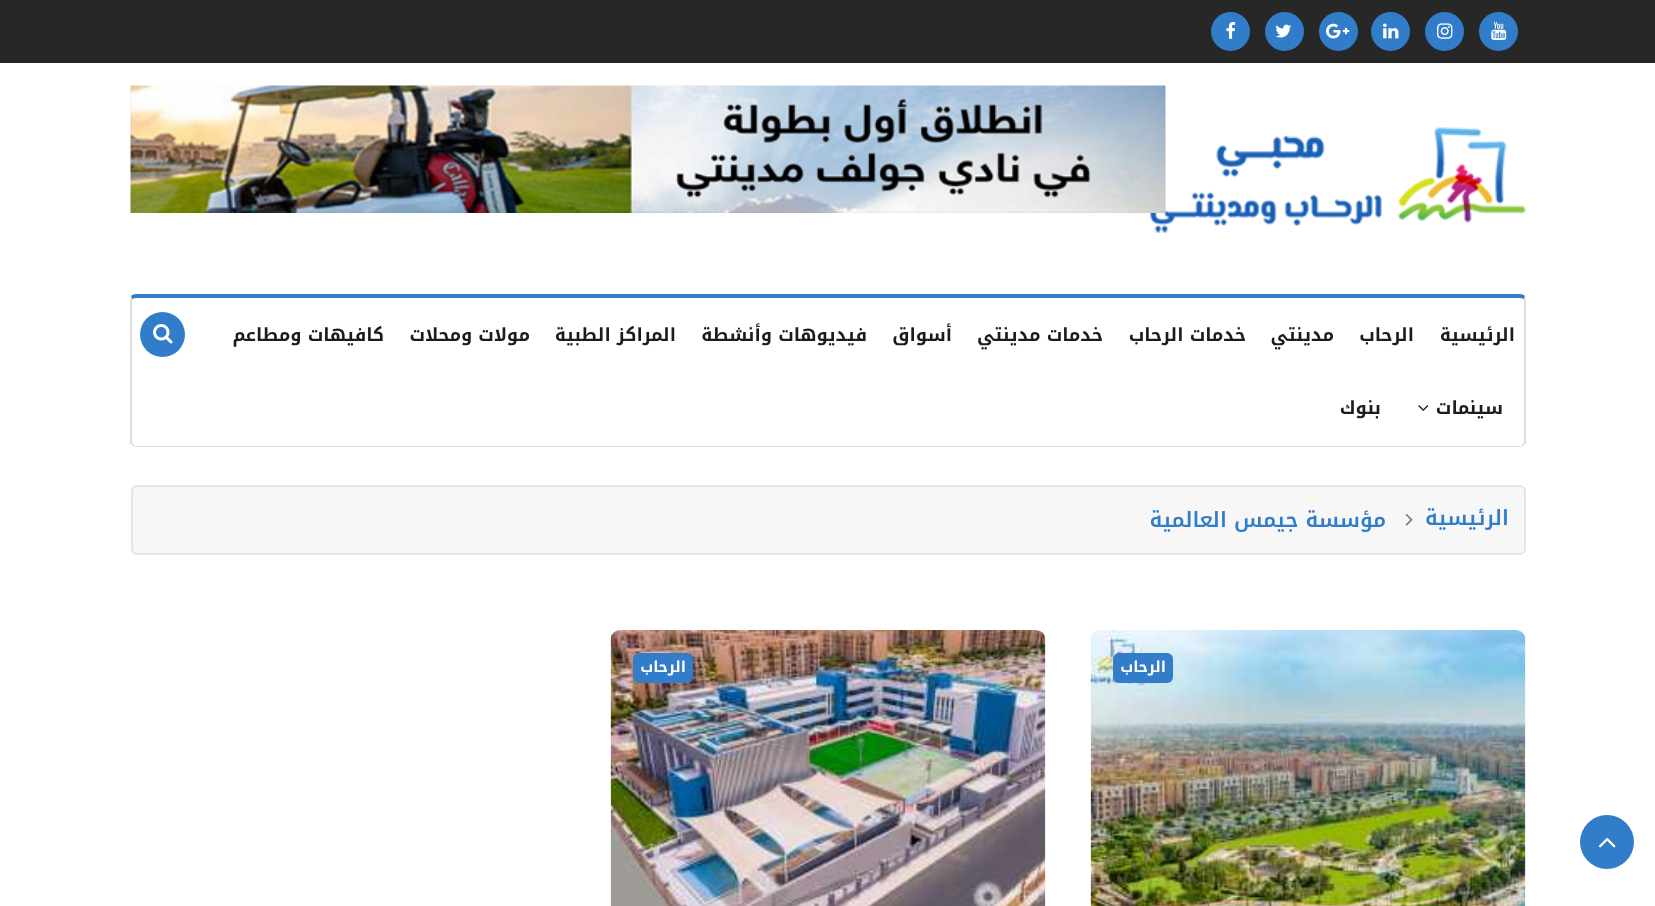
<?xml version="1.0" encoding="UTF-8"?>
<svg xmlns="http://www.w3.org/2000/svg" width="1655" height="906">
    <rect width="100%" height="100%" fill="#FFFFFF"/>
    <rect x="0" y="0" width="1655" height="63" fill="#272727"/>
    <circle cx="1498.5" cy="31.5" r="19.5" fill="#327DC9"/>
    <image x="1491" y="22" width="16" height="19" href="img_01.png"/>
    <circle cx="1444.5" cy="31.5" r="19.5" fill="#327DC9"/>
    <image x="1437" y="23" width="16" height="16" href="img_02.png"/>
    <circle cx="1390.5" cy="31.5" r="19.5" fill="#327DC9"/>
    <image x="1383" y="23" width="16" height="16" href="img_03.png"/>
    <circle cx="1338.5" cy="31.5" r="19.5" fill="#327DC9"/>
    <image x="1326" y="23" width="24" height="16" href="img_04.png"/>
    <circle cx="1284.5" cy="31.5" r="19.5" fill="#327DC9"/>
    <image x="1275" y="24" width="17" height="14" href="img_05.png"/>
    <circle cx="1230.5" cy="31.5" r="19.5" fill="#327DC9"/>
    <image x="1226" y="22" width="10" height="17" href="img_06.png"/>
    <image x="1150" y="127" width="376" height="106" href="img_07.png"/>
    <image x="130" y="85" width="1036" height="128" href="img_08.png"/>
    <path d="M 136 294 C 134 294 132 295 131 296 L 132 299 C 133 299 134 298 136 298 H 1520 C 1522 298 1523 299 1524 299 L 1525 296 C 1524 295 1522 294 1520 294 Z" fill="#327DC9"/>
    <path d="M 1526 443 L 1524 445 L 1523 444 L 1524 441 V 299 L 1525 296 L 1526 298 Z" fill="#DEDEDE"/>
    <path d="M 136 447 H 1520 C 1521 447 1523 446 1524 445 L 1523 444 C 1522 445 1521 446 1520 446 H 136 C 135 446 134 445 133 444 L 132 445 C 133 446 135 447 136 447 Z" fill="#DEDEDE"/>
    <path d="M 130 298 L 131 296 L 132 299 V 441 L 133 444 L 132 445 L 130 443 Z" fill="#DEDEDE"/>
    <text x="1515" y="341" font-family="Noto Kufi Arabic" font-size="18" font-weight="700" direction="rtl" fill="#1C1C1C">الرئيسية</text>
    <text x="1414" y="341" font-family="Noto Kufi Arabic" font-size="18" font-weight="700" direction="rtl" fill="#1C1C1C">الرحاب</text>
    <text x="1334" y="341" font-family="Noto Kufi Arabic" font-size="18" font-weight="700" direction="rtl" fill="#1C1C1C">مدينتي</text>
    <text x="1246" y="341" font-family="Noto Kufi Arabic" font-size="18" font-weight="700" direction="rtl" fill="#1C1C1C">خدمات الرحاب</text>
    <text x="1103" y="341" font-family="Noto Kufi Arabic" font-size="18" font-weight="700" direction="rtl" fill="#1C1C1C">خدمات مدينتي</text>
    <text x="952" y="341" font-family="Noto Kufi Arabic" font-size="18" font-weight="700" direction="rtl" fill="#1C1C1C">أسواق</text>
    <text x="867" y="341" font-family="Noto Kufi Arabic" font-size="18" font-weight="700" direction="rtl" fill="#1C1C1C">فيديوهات وأنشطة</text>
    <text x="676" y="341" font-family="Noto Kufi Arabic" font-size="18" font-weight="700" direction="rtl" fill="#1C1C1C">المراكز الطبية</text>
    <text x="530" y="341" font-family="Noto Kufi Arabic" font-size="18" font-weight="700" direction="rtl" fill="#1C1C1C">مولات ومحلات</text>
    <text x="384" y="341" font-family="Noto Kufi Arabic" font-size="18" font-weight="700" direction="rtl" fill="#1C1C1C">كافيهات ومطاعم</text>
    <text x="1503" y="414" font-family="Noto Kufi Arabic" font-size="18" font-weight="700" direction="rtl" fill="#1C1C1C">سينمات</text>
    <image x="1418" y="405" width="11" height="6" href="img_09.png"/>
    <text x="1381" y="414" font-family="Noto Kufi Arabic" font-size="18" font-weight="700" direction="rtl" fill="#1C1C1C">بنوك</text>
    <circle cx="162.5" cy="334.5" r="22.5" fill="#327DC9"/>
    <image x="153" y="324" width="20" height="20" href="img_10.png"/>
    <rect x="132" y="486" width="1393" height="68" rx="5" fill="#F7F7F7" stroke="#E5E5E5" stroke-width="2"/>
    <text x="1509" y="525" font-family="Noto Kufi Arabic" font-size="21" font-weight="600" direction="rtl" fill="#327DC9">الرئيسية</text>
    <image x="1405" y="514" width="8" height="12" href="img_11.png"/>
    <text x="1386" y="527" font-family="Noto Kufi Arabic" font-size="21" font-weight="600" direction="rtl" fill="#327DC9">مؤسسة جيمس العالمية</text>
    <image x="1090" y="630" width="436" height="276" href="img_12.png"/>
    <rect x="1113" y="653" width="60" height="30" rx="6" fill="#327DC9"/>
    <text x="1166" y="672" font-family="Noto Kufi Arabic" font-size="15" font-weight="700" direction="rtl" fill="#FFFFFF">الرحاب</text>
    <image x="610" y="630" width="436" height="276" href="img_13.png"/>
    <rect x="633" y="653" width="60" height="30" rx="6" fill="#327DC9"/>
    <text x="686" y="672" font-family="Noto Kufi Arabic" font-size="15" font-weight="700" direction="rtl" fill="#FFFFFF">الرحاب</text>
    <circle cx="1607" cy="842" r="27" fill="#327DC9"/>
    <image x="1598" y="837" width="18" height="11" href="img_14.png"/>
</svg>
